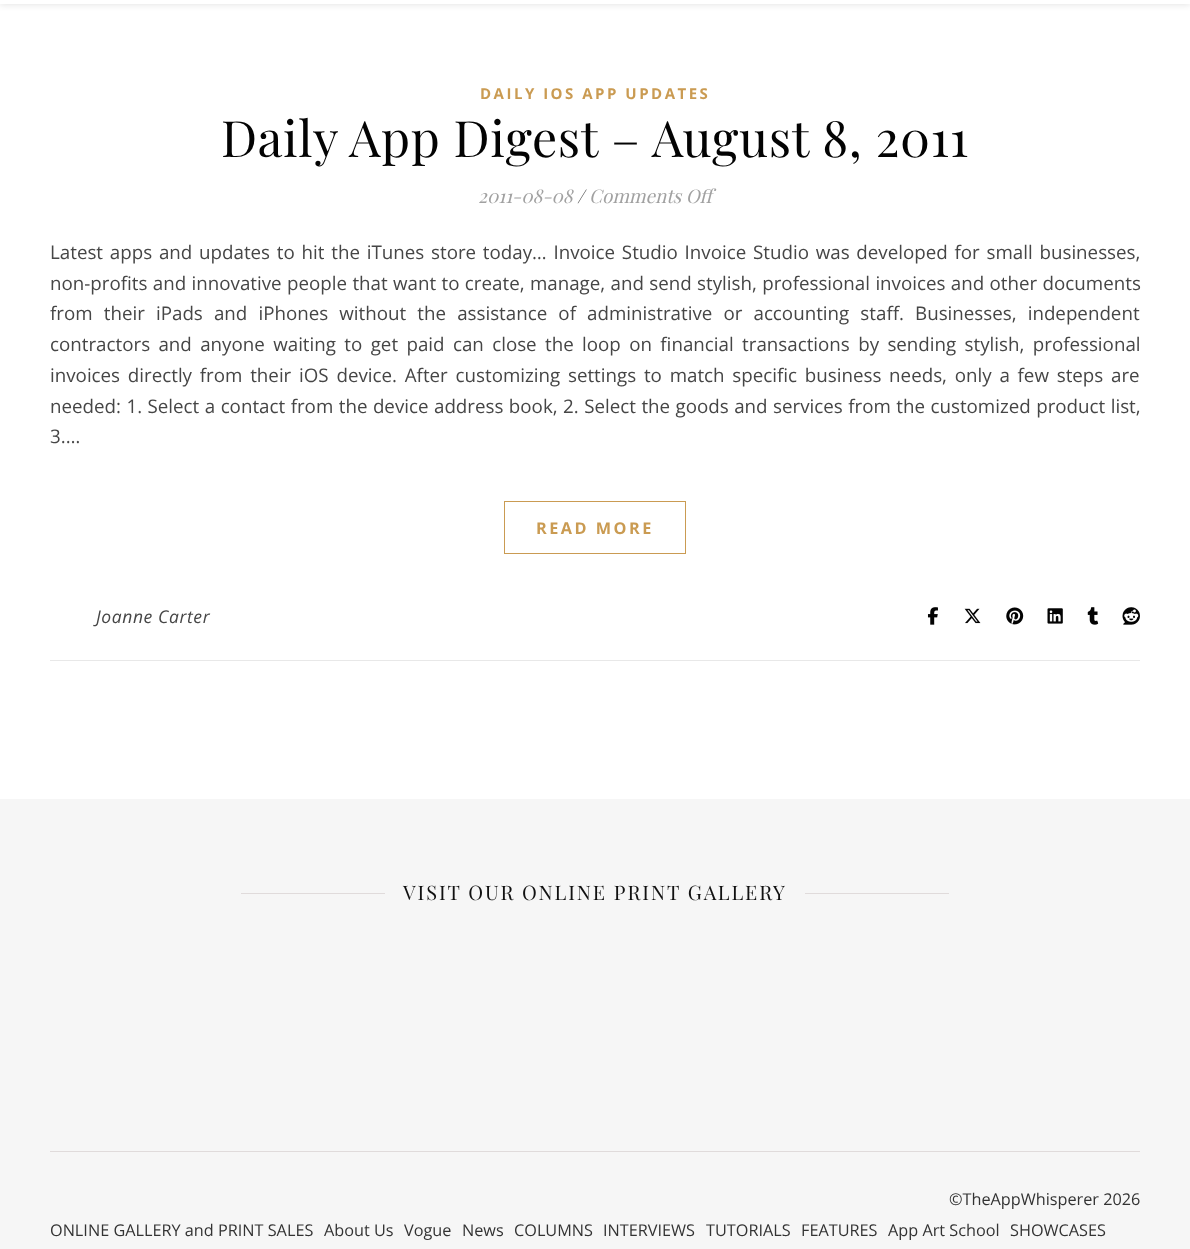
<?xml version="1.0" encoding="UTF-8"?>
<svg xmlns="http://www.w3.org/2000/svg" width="1190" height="1249">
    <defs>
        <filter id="blur1" x="-50%" y="-200%" width="200%" height="500%"><feGaussianBlur stdDeviation="3"/></filter>
    </defs>
    <rect width="100%" height="100%" fill="#FFFFFF"/>
    <rect x="0" y="-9" width="1190" height="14" fill="#000000" fill-opacity="0.1" filter="url(#blur1)"/>
    <rect x="0" y="0" width="1190" height="4" fill="#FFFFFF"/>
    <text x="480" y="99" font-family="Open Sans" font-size="15" font-weight="700" letter-spacing="2.5" fill="#CA9B52">DAILY IOS APP UPDATES</text>
    <text x="221" y="157" font-family="Playfair Display" font-size="50" letter-spacing="0.6" fill="#030303">Daily App Digest – August 8, 2011</text>
    <text x="478" y="203" font-family="Playfair Display" font-size="18.75" font-style="italic" fill="#A1A1A1">2011-08-08</text>
    <text x="577" y="203" font-family="Playfair Display" font-size="18.75" font-style="italic" fill="#464646">/</text>
    <text x="589" y="203" font-family="Playfair Display" font-size="18.75" font-style="italic" fill="#A1A1A1">Comments Off</text>
    <text font-family="Open Sans" font-size="18.75" fill="#464646">
        <tspan x="50" y="259" word-spacing="1.9">Latest apps and updates to hit the iTunes store today… Invoice Studio Invoice Studio was developed for small businesses,</tspan>
        <tspan x="50" y="290" word-spacing="0.5">non-profits and innovative people that want to create, manage, and send stylish, professional invoices and other documents</tspan>
        <tspan x="50" y="320" word-spacing="6.25">from their iPads and iPhones without the assistance of administrative or accounting staff. Businesses, independent</tspan>
        <tspan x="50" y="351" word-spacing="3.5">contractors and anyone waiting to get paid can close the loop on financial transactions by sending stylish, professional</tspan>
        <tspan x="50" y="382" word-spacing="2.9">invoices directly from their iOS device. After customizing settings to match specific business needs, only a few steps are</tspan>
        <tspan x="50" y="413" word-spacing="0.6">needed: 1. Select a contact from the device address book, 2. Select the goods and services from the customized product list,</tspan>
        <tspan x="50" y="443">3.…</tspan>
    </text>
    <rect x="504.5" y="501.5" width="181" height="52" fill="none" stroke="#CA9B52"/>
    <text x="536" y="534" font-family="Open Sans" font-size="16.25" font-weight="700" letter-spacing="2.5" fill="#CA9B52">READ MORE</text>
    <rect x="50" y="660" width="1090" height="1" fill="#E8E8E8"/>
    <text x="96" y="623" font-family="Open Sans" font-size="17.5" font-style="italic" letter-spacing="0.6" fill="#464646">Joanne Carter</text>
    <image x="927" y="607" width="11" height="18" href="img_01.png"/>
    <image x="964" y="608" width="17" height="16" href="img_02.png"/>
    <image x="1006" y="607" width="18" height="18" href="img_03.png"/>
    <image x="1047" y="608" width="16" height="16" href="img_04.png"/>
    <image x="1087" y="607" width="12" height="18" href="img_05.png"/>
    <image x="1122" y="607" width="18" height="18" href="img_06.png"/>
    <rect x="0" y="799" width="1190" height="450" fill="#F6F6F6"/>
    <rect x="50" y="1151" width="1090" height="1" fill="#E0DBDB"/>
    <rect x="241" y="893" width="144" height="1" fill="#E0DBDB"/>
    <text x="403" y="900" font-family="Playfair Display" font-size="20" letter-spacing="1.9" fill="#111111">VISIT OUR ONLINE PRINT GALLERY</text>
    <rect x="805" y="893" width="144" height="1" fill="#E0DBDB"/>
    <text x="949" y="1205" font-family="Open Sans" font-size="16.25" fill="#333333">©TheAppWhisperer 2026</text>
    <text x="50" y="1236" font-family="Open Sans" font-size="16.25" fill="#333333">ONLINE GALLERY and PRINT SALES</text>
    <text x="324" y="1236" font-family="Open Sans" font-size="16.25" fill="#333333">About Us</text>
    <text x="404" y="1236" font-family="Open Sans" font-size="16.25" fill="#333333">Vogue</text>
    <text x="462" y="1236" font-family="Open Sans" font-size="16.25" fill="#333333">News</text>
    <text x="514" y="1236" font-family="Open Sans" font-size="16.25" fill="#333333">COLUMNS</text>
    <text x="603" y="1236" font-family="Open Sans" font-size="16.25" fill="#333333">INTERVIEWS</text>
    <text x="706" y="1236" font-family="Open Sans" font-size="16.25" fill="#333333">TUTORIALS</text>
    <text x="801" y="1236" font-family="Open Sans" font-size="16.25" fill="#333333">FEATURES</text>
    <text x="888" y="1236" font-family="Open Sans" font-size="16.25" fill="#333333">App Art School</text>
    <text x="1010" y="1236" font-family="Open Sans" font-size="16.25" fill="#333333">SHOWCASES</text>
</svg>
